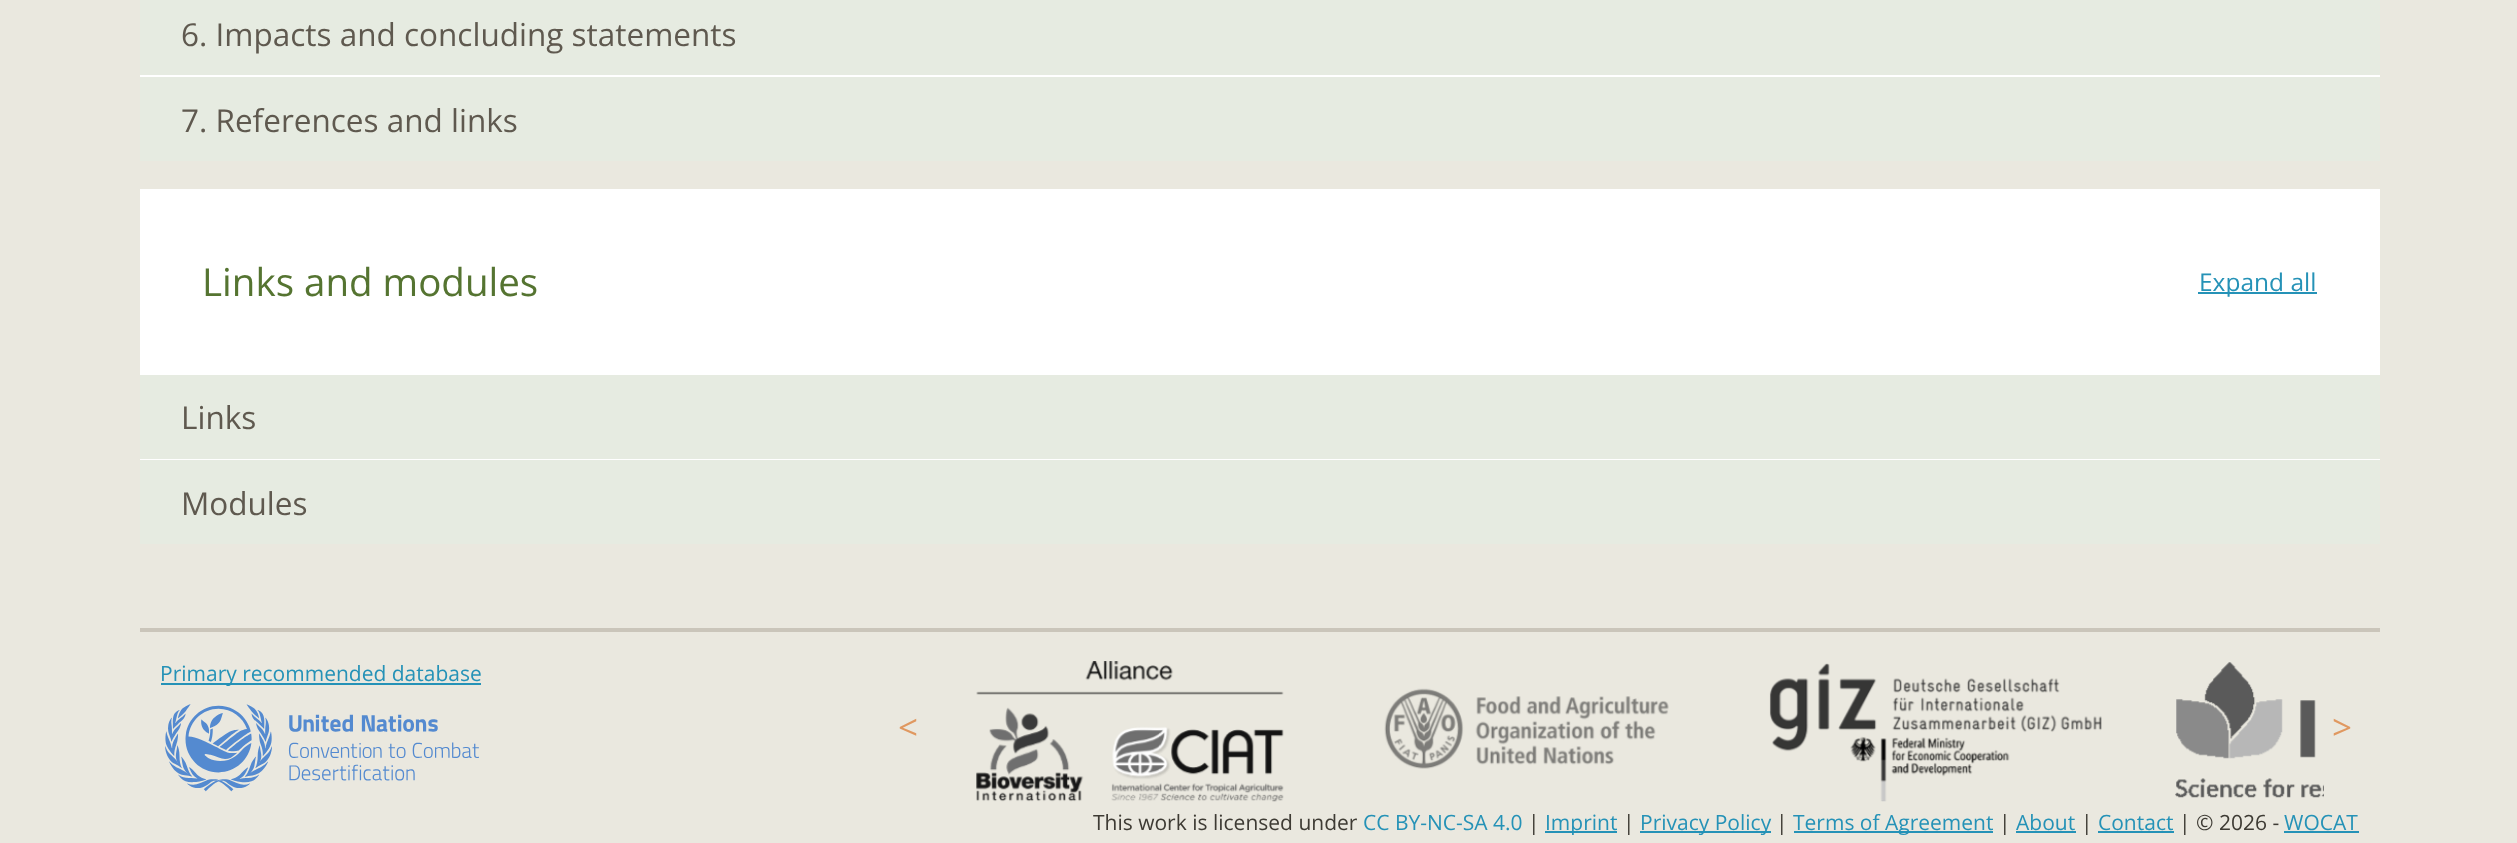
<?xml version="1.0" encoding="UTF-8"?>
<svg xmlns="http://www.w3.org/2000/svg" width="2517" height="843">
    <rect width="100%" height="100%" fill="#EAE8DF"/>
    <rect x="140" y="0" width="2240" height="75" fill="#E6EBE1"/>
    <text x="181" y="46" font-family="Open Sans" font-size="31.5" fill="#5F594F">6. Impacts and concluding statements</text>
    <rect x="140" y="75" width="2240" height="2" fill="#FFFFFF"/>
    <rect x="140" y="77" width="2240" height="84" fill="#E6EBE1"/>
    <text x="181" y="132" font-family="Open Sans" font-size="31.5" fill="#5F594F">7. References and links</text>
    <rect x="140" y="189" width="2240" height="186" fill="#FFFFFF"/>
    <text x="202" y="296" font-family="Open Sans" font-size="38.5" fill="#557431">Links and modules</text>
    <rect x="2198" y="292" width="119" height="2" fill="#2592B7"/>
    <text x="2199" y="291" font-family="Open Sans" font-size="24.5" fill="#2592B7">Expand all</text>
    <rect x="140" y="375" width="2240" height="84" fill="#E6EBE1"/>
    <text x="181" y="429" font-family="Open Sans" font-size="31.5" fill="#5F594F">Links</text>
    <rect x="140" y="459" width="2240" height="1" fill="#FFFFFF"/>
    <rect x="140" y="460" width="2240" height="84" fill="#E6EBE1"/>
    <text x="181" y="515" font-family="Open Sans" font-size="31.5" fill="#5F594F">Modules</text>
    <rect x="140" y="628" width="2240" height="4" fill="#CAC5BA"/>
    <rect x="161" y="683" width="320" height="2" fill="#2592B7"/>
    <text x="160" y="681" font-family="Open Sans" font-size="21" fill="#2592B7">Primary recommended database</text>
    <image x="165" y="704" width="314" height="88" href="img_01.png"/>
    <text x="898" y="740" font-family="Open Sans" font-size="35" fill="#E09860">&lt;</text>
    <image x="976" y="661" width="308" height="141" href="img_02.png"/>
    <image x="1384" y="688" width="285" height="81" href="img_03.png"/>
    <image x="1769" y="663" width="333" height="139" href="img_04.png"/>
    <image x="2175" y="662" width="149" height="136" href="img_05.png"/>
    <text x="2332" y="740" font-family="Open Sans" font-size="35" fill="#E09860">&gt;</text>
    <text x="1093" y="830" font-family="Open Sans" font-size="21" fill="#3E3B34">This work is licensed under</text>
    <text x="1363" y="830" font-family="Open Sans" font-size="21" fill="#2592B7">CC BY-NC-SA 4.0</text>
    <text x="1528" y="830" font-family="Open Sans" font-size="21" fill="#3E3B34">|</text>
    <rect x="1545" y="831" width="72" height="2" fill="#2592B7"/>
    <text x="1545" y="830" font-family="Open Sans" font-size="21" fill="#2592B7">Imprint</text>
    <text x="1623" y="830" font-family="Open Sans" font-size="21" fill="#3E3B34">|</text>
    <rect x="1640" y="831" width="131" height="2" fill="#2592B7"/>
    <text x="1640" y="830" font-family="Open Sans" font-size="21" fill="#2592B7">Privacy Policy</text>
    <text x="1776" y="830" font-family="Open Sans" font-size="21" fill="#3E3B34">|</text>
    <rect x="1794" y="831" width="199" height="2" fill="#2592B7"/>
    <text x="1793" y="830" font-family="Open Sans" font-size="21" fill="#2592B7">Terms of Agreement</text>
    <text x="1999" y="830" font-family="Open Sans" font-size="21" fill="#3E3B34">|</text>
    <text x="2016" y="830" font-family="Open Sans" font-size="21" fill="#2592B7">About</text>
    <rect x="2016" y="831" width="60" height="2" fill="#2592B7"/>
    <text x="2081" y="830" font-family="Open Sans" font-size="21" fill="#3E3B34">|</text>
    <text x="2098" y="830" font-family="Open Sans" font-size="21" fill="#2592B7">Contact</text>
    <rect x="2098" y="831" width="76" height="2" fill="#2592B7"/>
    <text x="2179" y="830" font-family="Open Sans" font-size="21" fill="#3E3B34">| © 2026 -</text>
    <text x="2284" y="830" font-family="Open Sans" font-size="21" fill="#2592B7">WOCAT</text>
    <rect x="2284" y="831" width="75" height="2" fill="#2592B7"/>
</svg>
